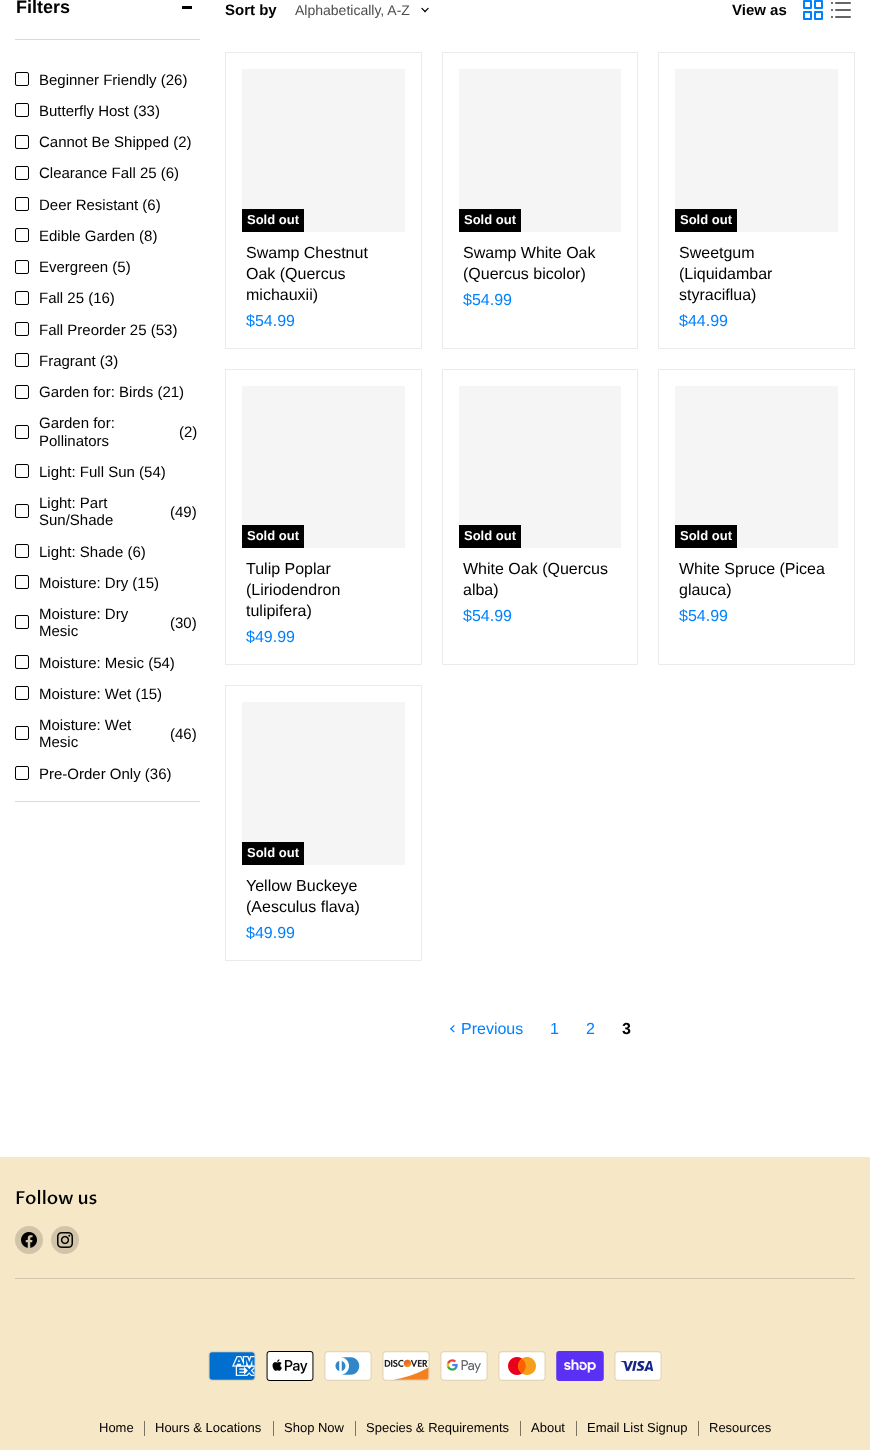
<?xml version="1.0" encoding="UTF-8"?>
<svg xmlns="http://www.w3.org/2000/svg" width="870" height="1450">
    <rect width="100%" height="100%" fill="#FFFFFF"/>
    <text x="16" y="13" font-family="Liberation Sans" font-size="18" font-weight="700" fill="#000000">Filters</text>
    <rect x="182" y="6" width="10" height="3" fill="#000000"/>
    <rect x="15" y="39" width="185" height="1" fill="#D9D9D9"/>
    <rect x="15" y="801" width="185" height="1" fill="#D9D9D9"/>
    <rect x="15.5" y="72.5" width="13" height="13" rx="1.5" fill="none" stroke="#000000"/>
    <text x="39" y="85" font-family="Liberation Sans" font-size="15" fill="#000000">Beginner Friendly (26)</text>
    <rect x="15.5" y="103.5" width="13" height="13" rx="1.5" fill="none" stroke="#000000"/>
    <text x="39" y="116" font-family="Liberation Sans" font-size="15" fill="#000000">Butterfly Host (33)</text>
    <rect x="15.5" y="135.5" width="13" height="13" rx="1.5" fill="none" stroke="#000000"/>
    <text x="39" y="147" font-family="Liberation Sans" font-size="15" fill="#000000">Cannot Be Shipped (2)</text>
    <rect x="15.5" y="166.5" width="13" height="13" rx="1.5" fill="none" stroke="#000000"/>
    <text x="39" y="178" font-family="Liberation Sans" font-size="15" fill="#000000">Clearance Fall 25 (6)</text>
    <rect x="15.5" y="197.5" width="13" height="13" rx="1.5" fill="none" stroke="#000000"/>
    <text x="39" y="210" font-family="Liberation Sans" font-size="15" fill="#000000">Deer Resistant (6)</text>
    <rect x="15.5" y="228.5" width="13" height="13" rx="1.5" fill="none" stroke="#000000"/>
    <text x="39" y="241" font-family="Liberation Sans" font-size="15" fill="#000000">Edible Garden (8)</text>
    <rect x="15.5" y="260.5" width="13" height="13" rx="1.5" fill="none" stroke="#000000"/>
    <text x="39" y="272" font-family="Liberation Sans" font-size="15" fill="#000000">Evergreen (5)</text>
    <rect x="15.5" y="291.5" width="13" height="13" rx="1.5" fill="none" stroke="#000000"/>
    <text x="39" y="303" font-family="Liberation Sans" font-size="15" fill="#000000">Fall 25 (16)</text>
    <rect x="15.5" y="322.5" width="13" height="13" rx="1.5" fill="none" stroke="#000000"/>
    <text x="39" y="335" font-family="Liberation Sans" font-size="15" fill="#000000">Fall Preorder 25 (53)</text>
    <rect x="15.5" y="353.5" width="13" height="13" rx="1.5" fill="none" stroke="#000000"/>
    <text x="39" y="366" font-family="Liberation Sans" font-size="15" fill="#000000">Fragrant (3)</text>
    <rect x="15.5" y="385.5" width="13" height="13" rx="1.5" fill="none" stroke="#000000"/>
    <text x="39" y="397" font-family="Liberation Sans" font-size="15" fill="#000000">Garden for: Birds (21)</text>
    <rect x="15.5" y="425.5" width="13" height="13" rx="1.5" fill="none" stroke="#000000"/>
    <text font-family="Liberation Sans" font-size="15" fill="#000000">
        <tspan x="39" y="428">Garden for:</tspan>
        <tspan x="39" y="446">Pollinators</tspan>
    </text>
    <text x="179" y="437" font-family="Liberation Sans" font-size="15" fill="#000000">(2)</text>
    <rect x="15.5" y="464.5" width="13" height="13" rx="1.5" fill="none" stroke="#000000"/>
    <text x="39" y="477" font-family="Liberation Sans" font-size="15" fill="#000000">Light: Full Sun (54)</text>
    <rect x="15.5" y="504.5" width="13" height="13" rx="1.5" fill="none" stroke="#000000"/>
    <text font-family="Liberation Sans" font-size="15" fill="#000000">
        <tspan x="39" y="508">Light: Part</tspan>
        <tspan x="39" y="525">Sun/Shade</tspan>
    </text>
    <text x="170" y="517" font-family="Liberation Sans" font-size="15" fill="#000000">(49)</text>
    <rect x="15.5" y="544.5" width="13" height="13" rx="1.5" fill="none" stroke="#000000"/>
    <text x="39" y="557" font-family="Liberation Sans" font-size="15" fill="#000000">Light: Shade (6)</text>
    <rect x="15.5" y="575.5" width="13" height="13" rx="1.5" fill="none" stroke="#000000"/>
    <text x="39" y="588" font-family="Liberation Sans" font-size="15" fill="#000000">Moisture: Dry (15)</text>
    <rect x="15.5" y="615.5" width="13" height="13" rx="1.5" fill="none" stroke="#000000"/>
    <text font-family="Liberation Sans" font-size="15" fill="#000000">
        <tspan x="39" y="619">Moisture: Dry</tspan>
        <tspan x="39" y="636">Mesic</tspan>
    </text>
    <text x="170" y="628" font-family="Liberation Sans" font-size="15" fill="#000000">(30)</text>
    <rect x="15.5" y="655.5" width="13" height="13" rx="1.5" fill="none" stroke="#000000"/>
    <text x="39" y="668" font-family="Liberation Sans" font-size="15" fill="#000000">Moisture: Mesic (54)</text>
    <rect x="15.5" y="686.5" width="13" height="13" rx="1.5" fill="none" stroke="#000000"/>
    <text x="39" y="699" font-family="Liberation Sans" font-size="15" fill="#000000">Moisture: Wet (15)</text>
    <rect x="15.5" y="726.5" width="13" height="13" rx="1.5" fill="none" stroke="#000000"/>
    <text font-family="Liberation Sans" font-size="15" fill="#000000">
        <tspan x="39" y="730">Moisture: Wet</tspan>
        <tspan x="39" y="747">Mesic</tspan>
    </text>
    <text x="170" y="739" font-family="Liberation Sans" font-size="15" fill="#000000">(46)</text>
    <rect x="15.5" y="766.5" width="13" height="13" rx="1.5" fill="none" stroke="#000000"/>
    <text x="39" y="779" font-family="Liberation Sans" font-size="15" fill="#000000">Pre-Order Only (36)</text>
    <text x="225" y="15" font-family="Liberation Sans" font-size="15" font-weight="700" fill="#000000">Sort by</text>
    <text x="295" y="15" font-family="Liberation Sans" font-size="14" fill="#4D4D4D">Alphabetically, A-Z</text>
    <image x="421" y="7" width="8" height="6" href="img_01.png"/>
    <text x="732" y="15" font-family="Liberation Sans" font-size="15" font-weight="700" fill="#000000">View as</text>
    <image x="803" y="0" width="20" height="20" href="img_02.png"/>
    <image x="831" y="2" width="20" height="16" href="img_03.png"/>
    <rect x="225.5" y="52.5" width="196" height="296" fill="none" stroke="#EBEBEB"/>
    <rect x="242" y="69" width="163" height="163" fill="#F5F5F5"/>
    <rect x="242" y="209" width="62" height="23" fill="#000000"/>
    <text x="247" y="224" font-family="Liberation Sans" font-size="13" font-weight="700" fill="#FFFFFF">Sold out</text>
    <text font-family="Liberation Sans" font-size="16" fill="#000000">
        <tspan x="246" y="258">Swamp Chestnut</tspan>
        <tspan x="246" y="279">Oak (Quercus</tspan>
        <tspan x="246" y="300">michauxii)</tspan>
    </text>
    <text x="246" y="326" font-family="Liberation Sans" font-size="16" fill="#0081FF">$54.99</text>
    <rect x="442.5" y="52.5" width="195" height="296" fill="none" stroke="#EBEBEB"/>
    <rect x="459" y="69" width="162" height="163" fill="#F5F5F5"/>
    <rect x="459" y="209" width="62" height="23" fill="#000000"/>
    <text x="464" y="224" font-family="Liberation Sans" font-size="13" font-weight="700" fill="#FFFFFF">Sold out</text>
    <text font-family="Liberation Sans" font-size="16" fill="#000000">
        <tspan x="463" y="258">Swamp White Oak</tspan>
        <tspan x="463" y="279">(Quercus bicolor)</tspan>
    </text>
    <text x="463" y="305" font-family="Liberation Sans" font-size="16" fill="#0081FF">$54.99</text>
    <rect x="658.5" y="52.5" width="196" height="296" fill="none" stroke="#EBEBEB"/>
    <rect x="675" y="69" width="163" height="163" fill="#F5F5F5"/>
    <rect x="675" y="209" width="62" height="23" fill="#000000"/>
    <text x="680" y="224" font-family="Liberation Sans" font-size="13" font-weight="700" fill="#FFFFFF">Sold out</text>
    <text font-family="Liberation Sans" font-size="16" fill="#000000">
        <tspan x="679" y="258">Sweetgum</tspan>
        <tspan x="679" y="279">(Liquidambar</tspan>
        <tspan x="679" y="300">styraciflua)</tspan>
    </text>
    <text x="679" y="326" font-family="Liberation Sans" font-size="16" fill="#0081FF">$44.99</text>
    <rect x="225.5" y="369.5" width="196" height="295" fill="none" stroke="#EBEBEB"/>
    <rect x="242" y="386" width="163" height="162" fill="#F5F5F5"/>
    <rect x="242" y="525" width="62" height="23" fill="#000000"/>
    <text x="247" y="540" font-family="Liberation Sans" font-size="13" font-weight="700" fill="#FFFFFF">Sold out</text>
    <text font-family="Liberation Sans" font-size="16" fill="#000000">
        <tspan x="246" y="574">Tulip Poplar</tspan>
        <tspan x="246" y="595">(Liriodendron</tspan>
        <tspan x="246" y="616">tulipifera)</tspan>
    </text>
    <text x="246" y="642" font-family="Liberation Sans" font-size="16" fill="#0081FF">$49.99</text>
    <rect x="442.5" y="369.5" width="195" height="295" fill="none" stroke="#EBEBEB"/>
    <rect x="459" y="386" width="162" height="162" fill="#F5F5F5"/>
    <rect x="459" y="525" width="62" height="23" fill="#000000"/>
    <text x="464" y="540" font-family="Liberation Sans" font-size="13" font-weight="700" fill="#FFFFFF">Sold out</text>
    <text font-family="Liberation Sans" font-size="16" fill="#000000">
        <tspan x="463" y="574">White Oak (Quercus</tspan>
        <tspan x="463" y="595">alba)</tspan>
    </text>
    <text x="463" y="621" font-family="Liberation Sans" font-size="16" fill="#0081FF">$54.99</text>
    <rect x="658.5" y="369.5" width="196" height="295" fill="none" stroke="#EBEBEB"/>
    <rect x="675" y="386" width="163" height="162" fill="#F5F5F5"/>
    <rect x="675" y="525" width="62" height="23" fill="#000000"/>
    <text x="680" y="540" font-family="Liberation Sans" font-size="13" font-weight="700" fill="#FFFFFF">Sold out</text>
    <text font-family="Liberation Sans" font-size="16" fill="#000000">
        <tspan x="679" y="574">White Spruce (Picea</tspan>
        <tspan x="679" y="595">glauca)</tspan>
    </text>
    <text x="679" y="621" font-family="Liberation Sans" font-size="16" fill="#0081FF">$54.99</text>
    <rect x="225.5" y="685.5" width="196" height="275" fill="none" stroke="#EBEBEB"/>
    <rect x="242" y="702" width="163" height="163" fill="#F5F5F5"/>
    <rect x="242" y="842" width="62" height="23" fill="#000000"/>
    <text x="247" y="857" font-family="Liberation Sans" font-size="13" font-weight="700" fill="#FFFFFF">Sold out</text>
    <text font-family="Liberation Sans" font-size="16" fill="#000000">
        <tspan x="246" y="891">Yellow Buckeye</tspan>
        <tspan x="246" y="912">(Aesculus flava)</tspan>
    </text>
    <text x="246" y="938" font-family="Liberation Sans" font-size="16" fill="#0081FF">$49.99</text>
    <image x="450" y="1025" width="5" height="8" href="img_04.png"/>
    <text x="461" y="1034" font-family="Liberation Sans" font-size="16" fill="#0081FF">Previous</text>
    <text x="550" y="1034" font-family="Liberation Sans" font-size="16" fill="#0081FF">1</text>
    <text x="586" y="1034" font-family="Liberation Sans" font-size="16" fill="#0081FF">2</text>
    <text x="622" y="1034" font-family="Liberation Sans" font-size="16" font-weight="700" fill="#000000">3</text>
    <rect x="0" y="1157" width="870" height="293" fill="#F6E7C6"/>
    <rect x="15" y="1278" width="840" height="1" fill="#D1C4A8"/>
    <text x="15" y="1204" font-family="Proza Libre" font-size="18" font-weight="500" fill="#000000">Follow us</text>
    <circle cx="29" cy="1240" r="14" fill="#D1C4A8"/>
    <image x="21" y="1232" width="16" height="16" href="img_05.png"/>
    <circle cx="65" cy="1240" r="14" fill="#D1C4A8"/>
    <image x="57" y="1232" width="16" height="16" href="img_06.png"/>
    <image x="208" y="1351" width="48" height="30" href="img_07.png"/>
    <image x="266" y="1351" width="48" height="30" href="img_08.png"/>
    <image x="324" y="1351" width="48" height="30" href="img_09.png"/>
    <image x="382" y="1351" width="48" height="30" href="img_10.png"/>
    <image x="440" y="1351" width="48" height="30" href="img_11.png"/>
    <image x="498" y="1351" width="48" height="30" href="img_12.png"/>
    <image x="556" y="1351" width="48" height="30" href="img_13.png"/>
    <image x="614" y="1351" width="48" height="30" href="img_14.png"/>
    <rect x="144" y="1421" width="1" height="15" fill="#7B7463"/>
    <text x="99" y="1432" font-family="Liberation Sans" font-size="13" fill="#000000">Home</text>
    <rect x="273" y="1421" width="1" height="15" fill="#7B7463"/>
    <text x="155" y="1432" font-family="Liberation Sans" font-size="13" fill="#000000">Hours &amp; Locations</text>
    <rect x="355" y="1421" width="1" height="15" fill="#7B7463"/>
    <text x="284" y="1432" font-family="Liberation Sans" font-size="13" fill="#000000">Shop Now</text>
    <rect x="520" y="1421" width="1" height="15" fill="#7B7463"/>
    <text x="366" y="1432" font-family="Liberation Sans" font-size="13" fill="#000000">Species &amp; Requirements</text>
    <rect x="576" y="1421" width="1" height="15" fill="#7B7463"/>
    <text x="531" y="1432" font-family="Liberation Sans" font-size="13" fill="#000000">About</text>
    <rect x="698" y="1421" width="1" height="15" fill="#7B7463"/>
    <text x="587" y="1432" font-family="Liberation Sans" font-size="13" fill="#000000">Email List Signup</text>
    <text x="709" y="1432" font-family="Liberation Sans" font-size="13" fill="#000000">Resources</text>
</svg>
